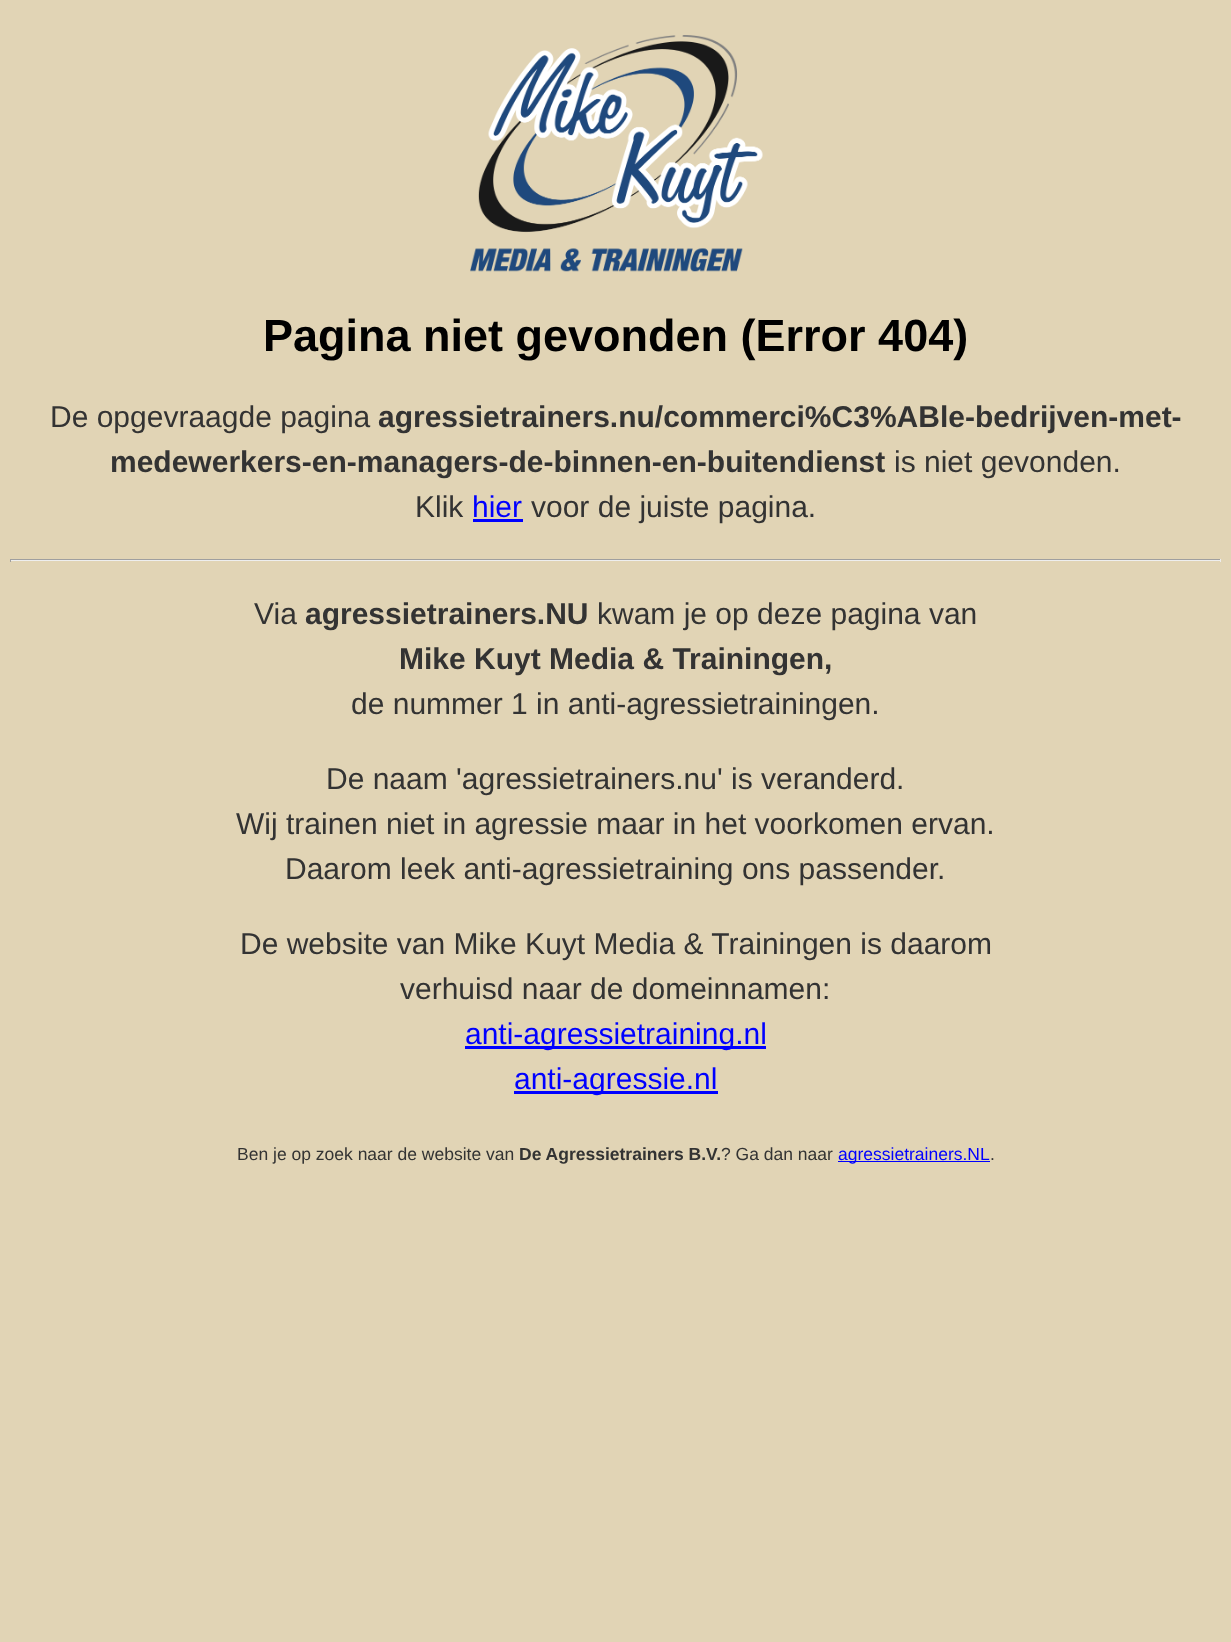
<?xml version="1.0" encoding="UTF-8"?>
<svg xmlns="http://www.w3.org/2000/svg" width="1231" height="1642">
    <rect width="100%" height="100%" fill="#E1D4B5"/>
    <image x="470" y="35" width="293" height="237" href="img_01.png"/>
    <text x="263" y="351" font-family="Liberation Sans" font-size="45" font-weight="700" fill="#000000">Pagina niet gevonden (Error 404)</text>
    <text x="50" y="427" font-family="Liberation Sans" font-size="30" fill="#333333">De opgevraagde pagina</text>
    <text x="378" y="427" font-family="Liberation Sans" font-size="30" font-weight="700" fill="#333333">agressietrainers.nu/commerci%C3%ABle-bedrijven-met-</text>
    <text x="110" y="472" font-family="Liberation Sans" font-size="30" font-weight="700" fill="#333333">medewerkers-en-managers-de-binnen-en-buitendienst</text>
    <text x="894" y="472" font-family="Liberation Sans" font-size="30" fill="#333333">is niet gevonden.</text>
    <text x="415" y="517" font-family="Liberation Sans" font-size="30" fill="#333333">Klik</text>
    <text x="472" y="517" font-family="Liberation Sans" font-size="30" fill="#0000FF">hier</text>
    <rect x="473" y="519" width="50" height="3" fill="#0000FF"/>
    <text x="531" y="517" font-family="Liberation Sans" font-size="30" fill="#333333">voor de juiste pagina.</text>
    <rect x="10" y="559" width="1211" height="1" fill="#9F9F9F"/>
    <rect x="1220" y="559" width="1" height="3" fill="#EEEEEE"/>
    <rect x="10" y="560" width="1211" height="1" fill="#EEEEEE"/>
    <rect x="10" y="559" width="1" height="3" fill="#9F9F9F"/>
    <text x="254" y="624" font-family="Liberation Sans" font-size="30" fill="#333333">Via</text>
    <text x="305" y="624" font-family="Liberation Sans" font-size="30" font-weight="700" fill="#333333">agressietrainers.NU</text>
    <text x="597" y="624" font-family="Liberation Sans" font-size="30" fill="#333333">kwam je op deze pagina van</text>
    <text x="399" y="669" font-family="Liberation Sans" font-size="30" font-weight="700" fill="#333333">Mike Kuyt Media &amp; Trainingen,</text>
    <text x="351" y="714" font-family="Liberation Sans" font-size="30" fill="#333333">de nummer 1 in anti-agressietrainingen.</text>
    <text x="326" y="789" font-family="Liberation Sans" font-size="30" fill="#333333">De naam 'agressietrainers.nu' is veranderd.</text>
    <text x="236" y="834" font-family="Liberation Sans" font-size="30" fill="#333333">Wij trainen niet in agressie maar in het voorkomen ervan.</text>
    <text x="285" y="879" font-family="Liberation Sans" font-size="30" fill="#333333">Daarom leek anti-agressietraining ons passender.</text>
    <text x="240" y="954" font-family="Liberation Sans" font-size="30" fill="#333333">De website van Mike Kuyt Media &amp; Trainingen is daarom</text>
    <text x="400" y="999" font-family="Liberation Sans" font-size="30" fill="#333333">verhuisd naar de domeinnamen:</text>
    <rect x="465" y="1046" width="301" height="3" fill="#0000FF"/>
    <text x="465" y="1044" font-family="Liberation Sans" font-size="30" fill="#0000FF">anti-agressietraining.nl</text>
    <rect x="514" y="1091" width="204" height="3" fill="#0000FF"/>
    <text x="514" y="1089" font-family="Liberation Sans" font-size="30" fill="#0000FF">anti-agressie.nl</text>
    <text x="237" y="1160" font-family="Liberation Sans" font-size="17.5" fill="#333333">Ben je op zoek naar de website van</text>
    <text x="519" y="1160" font-family="Liberation Sans" font-size="17.5" font-weight="700" fill="#333333">De Agressietrainers B.V.</text>
    <text x="721" y="1160" font-family="Liberation Sans" font-size="17.5" fill="#333333">? Ga dan naar</text>
    <rect x="838" y="1161" width="152" height="1" fill="#0000FF"/>
    <text x="838" y="1160" font-family="Liberation Sans" font-size="17.5" fill="#0000FF">agressietrainers.NL</text>
    <text x="990" y="1160" font-family="Liberation Sans" font-size="17.5" fill="#333333">.</text>
</svg>
